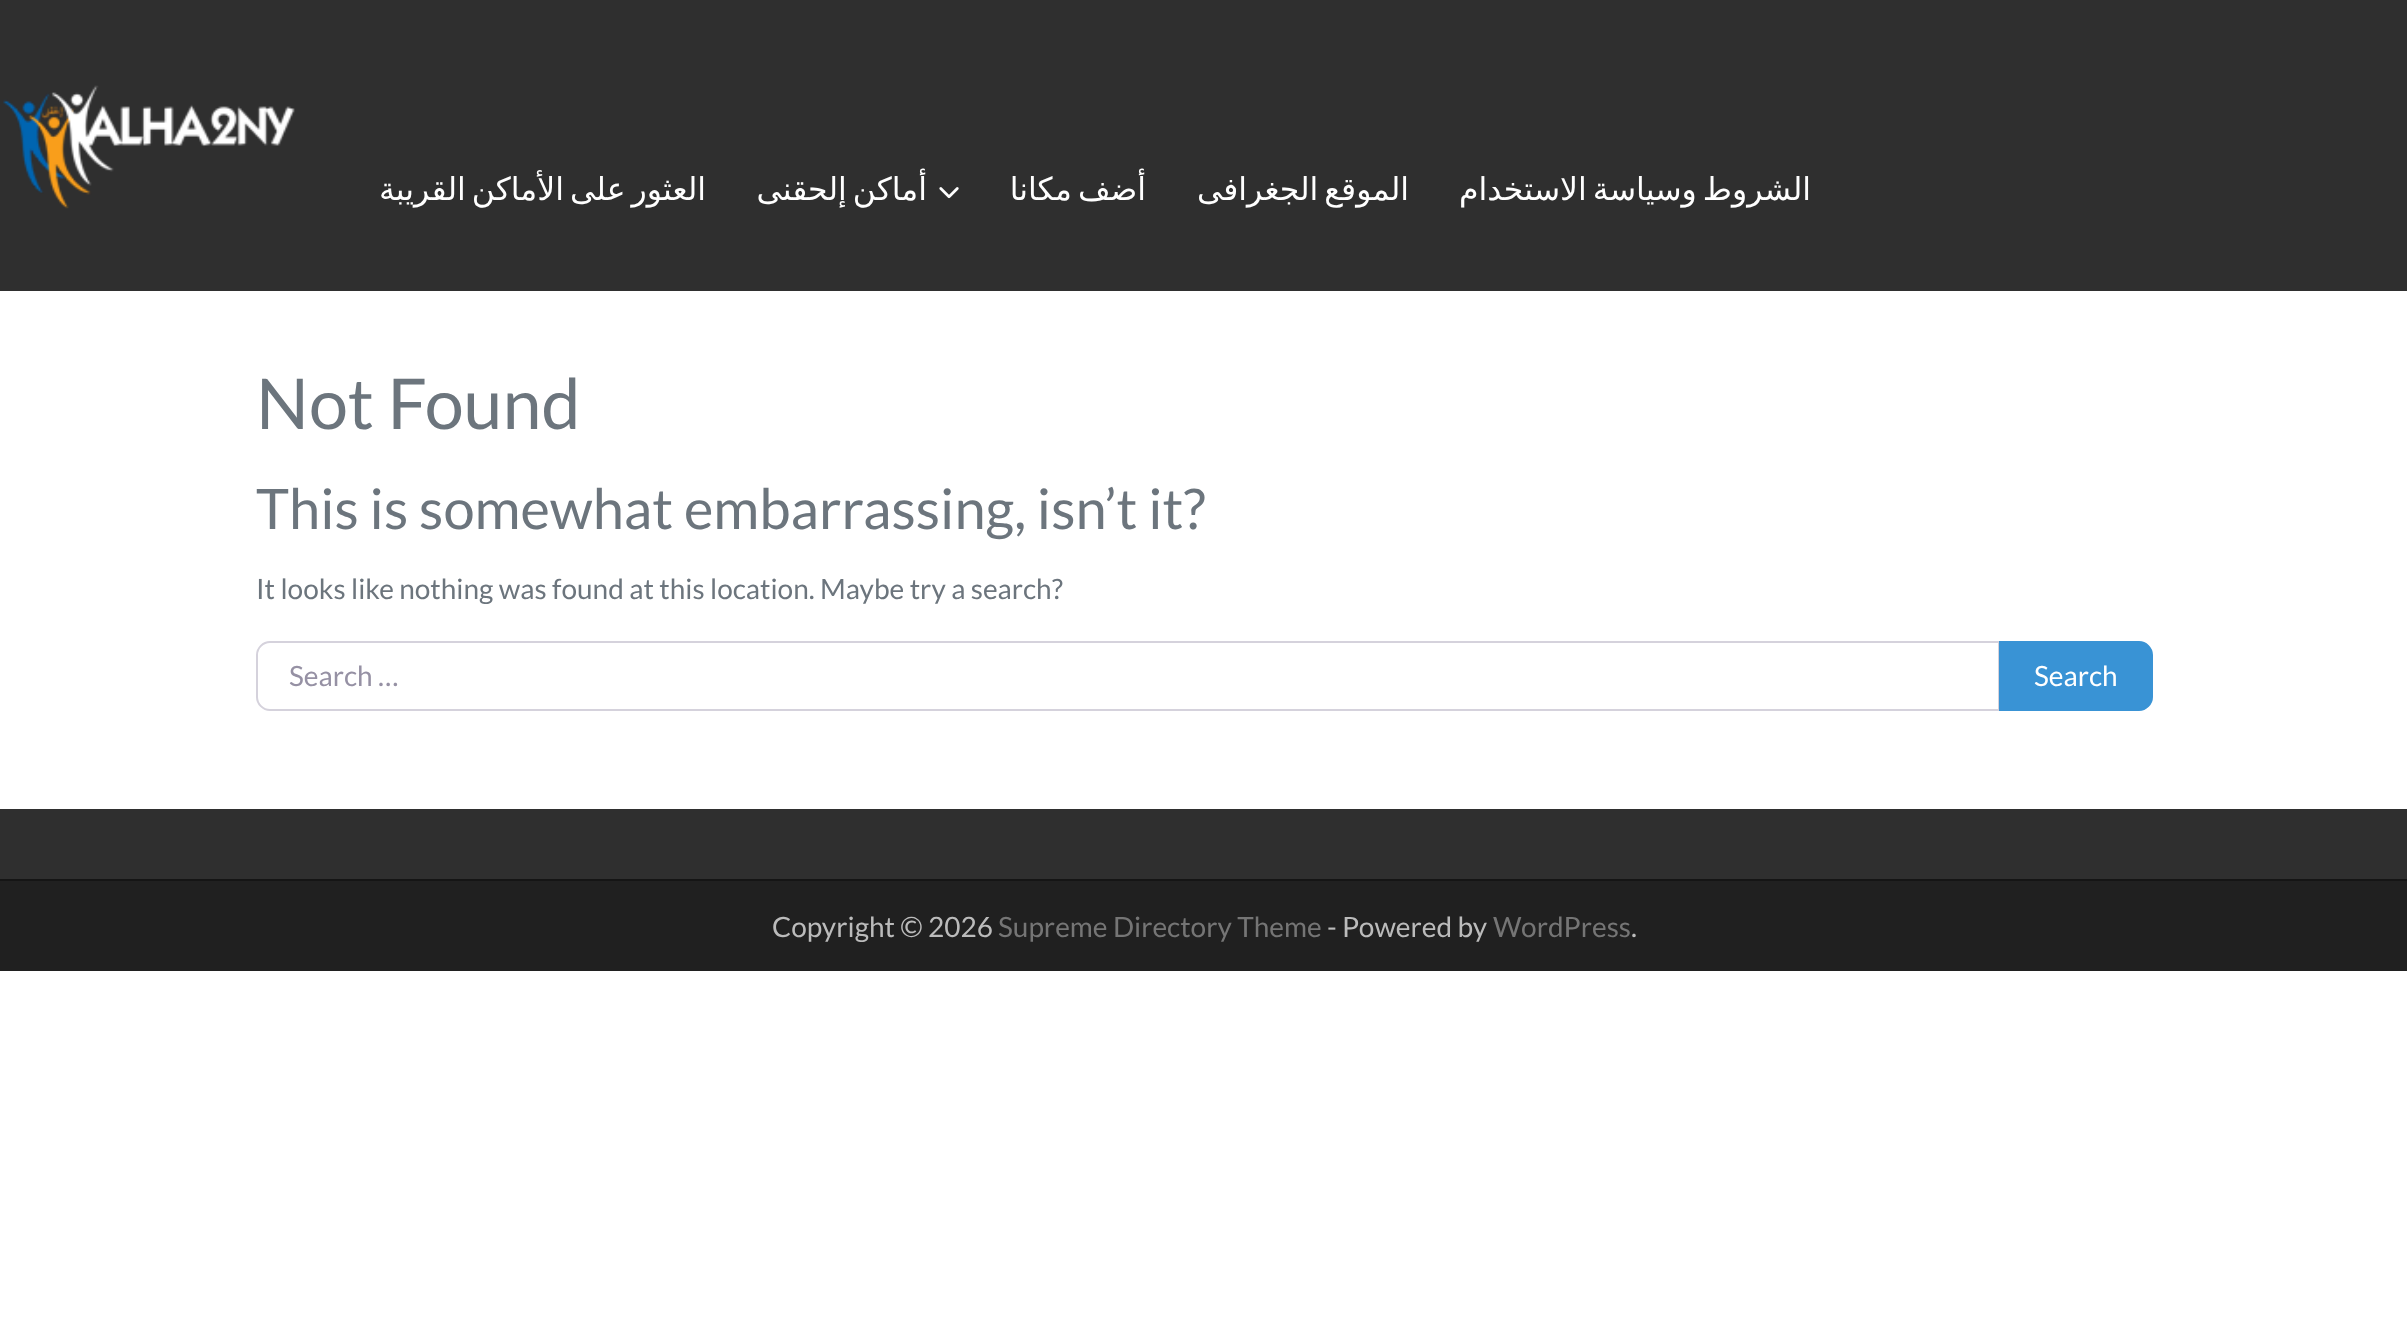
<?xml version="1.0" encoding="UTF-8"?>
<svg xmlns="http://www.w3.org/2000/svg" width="2407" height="1319">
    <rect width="100%" height="100%" fill="#FFFFFF"/>
    <rect x="0" y="0" width="2407" height="291" fill="#2F2F2F"/>
    <image x="3" y="85" width="292" height="124" href="img_01.png"/>
    <text x="706" y="200" word-spacing="-4" font-family="DejaVu Sans" font-size="31.5" direction="rtl" fill="#FFFFFF">العثور على الأماكن القريبة</text>
    <text x="927" y="200" word-spacing="-4" font-family="DejaVu Sans" font-size="31.5" direction="rtl" fill="#FFFFFF">أماكن إلحقنى</text>
    <image x="939" y="187" width="20" height="12" href="img_02.png"/>
    <text x="1146" y="200" word-spacing="-4" font-family="DejaVu Sans" font-size="31.5" direction="rtl" fill="#FFFFFF">أضف مكانا</text>
    <text x="1409" y="200" word-spacing="-4" font-family="DejaVu Sans" font-size="31.5" direction="rtl" fill="#FFFFFF">الموقع الجغرافى</text>
    <text x="1811" y="200" word-spacing="-4" font-family="DejaVu Sans" font-size="31.5" direction="rtl" fill="#FFFFFF">الشروط وسياسة الاستخدام</text>
    <text x="256" y="429" font-family="Lato" font-size="70" fill="#6C757D">Not Found</text>
    <text x="256" y="529" font-family="Lato" font-size="56" fill="#6C757D">This is somewhat embarrassing, isn’t it?</text>
    <text x="256" y="599" font-family="Lato" font-size="28" fill="#6C757D">It looks like nothing was found at this location. Maybe try a search?</text>
    <path d="M 270 642 H 1999 V 710 H 270 C 263 710 257 704 257 697 V 655 C 257 648 263 642 270 642 Z" fill="none" stroke="#D5D2DC" stroke-width="2"/>
    <text x="289" y="686" font-family="Lato" font-size="28" fill="#9691A4">Search …</text>
    <path d="M 2000 642 H 2139 C 2146 642 2152 648 2152 655 V 697 C 2152 704 2146 710 2139 710 H 2000 Z" fill="#3993D5" stroke="#3993D5" stroke-width="2"/>
    <text x="2034" y="686" font-family="Lato" font-size="28" fill="#FFFFFF">Search</text>
    <rect x="0" y="809" width="2407" height="70" fill="#2F2F2F"/>
    <rect x="0" y="881" width="2407" height="90" fill="#202020"/>
    <rect x="0" y="879" width="2407" height="2" fill="#151515"/>
    <text x="772" y="937" font-family="Lato" font-size="28" fill="#BBBBBB">Copyright © 2026</text>
    <text x="998" y="937" font-family="Lato" font-size="28" fill="#757575">Supreme Directory Theme</text>
    <text x="1327" y="937" font-family="Lato" font-size="28" fill="#BBBBBB">- Powered by</text>
    <text x="1493" y="937" font-family="Lato" font-size="28" fill="#757575">WordPress</text>
    <text x="1631" y="937" font-family="Lato" font-size="28" fill="#BBBBBB">.</text>
</svg>
